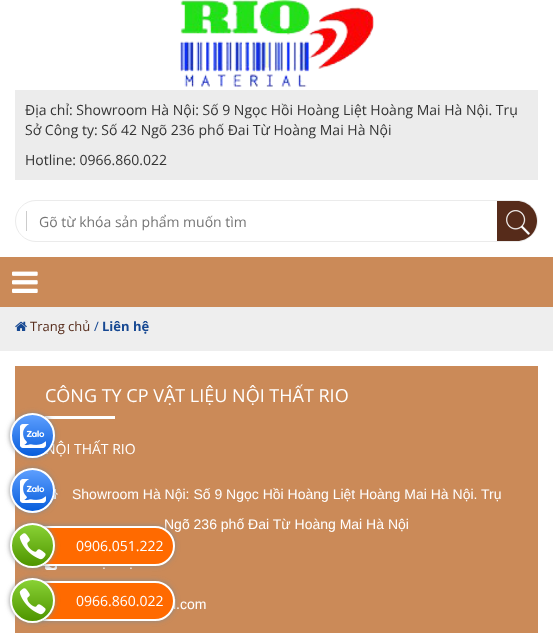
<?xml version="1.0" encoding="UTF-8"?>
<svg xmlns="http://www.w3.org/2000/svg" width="553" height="633">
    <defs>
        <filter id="blur1" x="-50%" y="-200%" width="200%" height="500%"><feGaussianBlur stdDeviation="2.5"/></filter>
    </defs>
    <rect width="100%" height="100%" fill="#FFFFFF"/>
    <image x="180" y="0" width="194" height="90" href="img_01.png"/>
    <rect x="15" y="90" width="523" height="90" fill="#ECECEC"/>
    <text font-family="Open Sans" font-size="14" fill="#333333">
        <tspan x="25" y="115">Địa chỉ: Showroom Hà Nội: Số 9 Ngọc Hồi Hoàng Liệt Hoàng Mai Hà Nội. Trụ</tspan>
        <tspan x="25" y="135">Sở Công ty: Số 42 Ngõ 236 phố Đai Từ Hoàng Mai Hà Nội</tspan>
    </text>
    <text x="25" y="165" font-family="Open Sans" font-size="14" fill="#333333">Hotline: 0966.860.022</text>
    <rect x="15.5" y="200.5" width="522" height="41" rx="20.5" fill="none" stroke="#EBEBEB"/>
    <rect x="26" y="211" width="1" height="20" fill="#CCCCCC"/>
    <text x="39" y="227" font-family="Open Sans" font-size="14" fill="#757575">Gõ từ khóa sản phẩm muốn tìm</text>
    <path d="M 497 201 H 517 C 528 201 537 210 537 221 C 537 232 528 241 517 241 H 497 Z" fill="#562B1A"/>
    <image x="506" y="210" width="24" height="25" href="img_02.png"/>
    <rect x="0" y="257" width="553" height="50" fill="#CB8A58"/>
    <image x="12" y="271" width="26" height="22" href="img_03.png"/>
    <rect x="0" y="307" width="553" height="44" fill="#EEEEEE"/>
    <image x="15" y="321" width="12" height="10" href="img_04.png"/>
    <text x="30" y="331" font-family="Open Sans" font-size="13" fill="#562B1A">Trang chủ</text>
    <text x="94" y="331" font-family="Open Sans" font-size="13" fill="#164892">/</text>
    <text x="102" y="331" font-family="Open Sans" font-size="13" font-weight="700" fill="#164892">Liên hệ</text>
    <rect x="15" y="366" width="523" height="267" fill="#CB8A58"/>
    <text x="45" y="402" font-family="Open Sans" font-size="18" fill="#FFFFFF">CÔNG TY CP VẬT LIỆU NỘI THẤT RIO</text>
    <rect x="45" y="416" width="70" height="3" fill="#FFFFFF"/>
    <text x="45" y="454" font-family="Open Sans" font-size="14" fill="#FFFFFF">NỘI THẤT RIO</text>
    <image x="53" y="489" width="5" height="10" href="img_05.png"/>
    <text x="72" y="499" font-family="Liberation Sans" font-size="14" fill="#FFFFFF">Showroom Hà Nội: Số 9 Ngọc Hồi Hoàng Liệt Hoàng Mai Hà Nội. Trụ</text>
    <text x="164" y="529" font-family="Liberation Sans" font-size="14" fill="#FFFFFF">Ngõ 236 phố Đai Từ Hoàng Mai Hà Nội</text>
    <image x="45" y="566" width="12" height="4" href="img_06.png"/>
    <text x="102" y="569" font-family="Liberation Sans" font-size="14" fill="#FFFFFF">.</text>
    <text x="129" y="569" font-family="Liberation Sans" font-size="14" fill="#FFFFFF">.</text>
    <text x="173" y="609" font-family="Liberation Sans" font-size="14" fill="#FFFFFF">l.com</text>
    <rect x="10" y="413" width="45" height="45" rx="22.5" fill="#888888" filter="url(#blur1)"/>
    <image x="11" y="414" width="44" height="44" href="img_07.png"/>
    <circle cx="32.5" cy="435.5" r="21.5" fill="none" stroke="#FFFFFF" stroke-width="2"/>
    <rect x="10" y="468" width="45" height="45" rx="22.5" fill="#888888" filter="url(#blur1)"/>
    <image x="11" y="469" width="44" height="44" href="img_08.png"/>
    <circle cx="32.5" cy="490.5" r="21.5" fill="none" stroke="#FFFFFF" stroke-width="2"/>
    <rect x="25" y="526" width="150" height="40" rx="20" fill="#888888" filter="url(#blur1)"/>
    <rect x="26" y="527" width="148" height="38" rx="19" fill="#FF6A00" stroke="#FFFFFF" stroke-width="2"/>
    <rect x="10" y="523" width="45" height="45" rx="22.5" fill="#888888" filter="url(#blur1)"/>
    <image x="11" y="524" width="44" height="44" href="img_09.png"/>
    <circle cx="32.5" cy="545.5" r="21.5" fill="none" stroke="#FFFFFF" stroke-width="2"/>
    <text x="76" y="551" font-family="Open Sans" font-size="14" fill="#FFFFFF">0906.051.222</text>
    <rect x="25" y="581" width="150" height="40" rx="20" fill="#888888" filter="url(#blur1)"/>
    <rect x="26" y="582" width="148" height="38" rx="19" fill="#FF6A00" stroke="#FFFFFF" stroke-width="2"/>
    <rect x="10" y="578" width="45" height="45" rx="22.5" fill="#888888" filter="url(#blur1)"/>
    <image x="11" y="579" width="44" height="44" href="img_10.png"/>
    <circle cx="32.5" cy="600.5" r="21.5" fill="none" stroke="#FFFFFF" stroke-width="2"/>
    <text x="76" y="606" font-family="Open Sans" font-size="14" fill="#FFFFFF">0966.860.022</text>
</svg>
